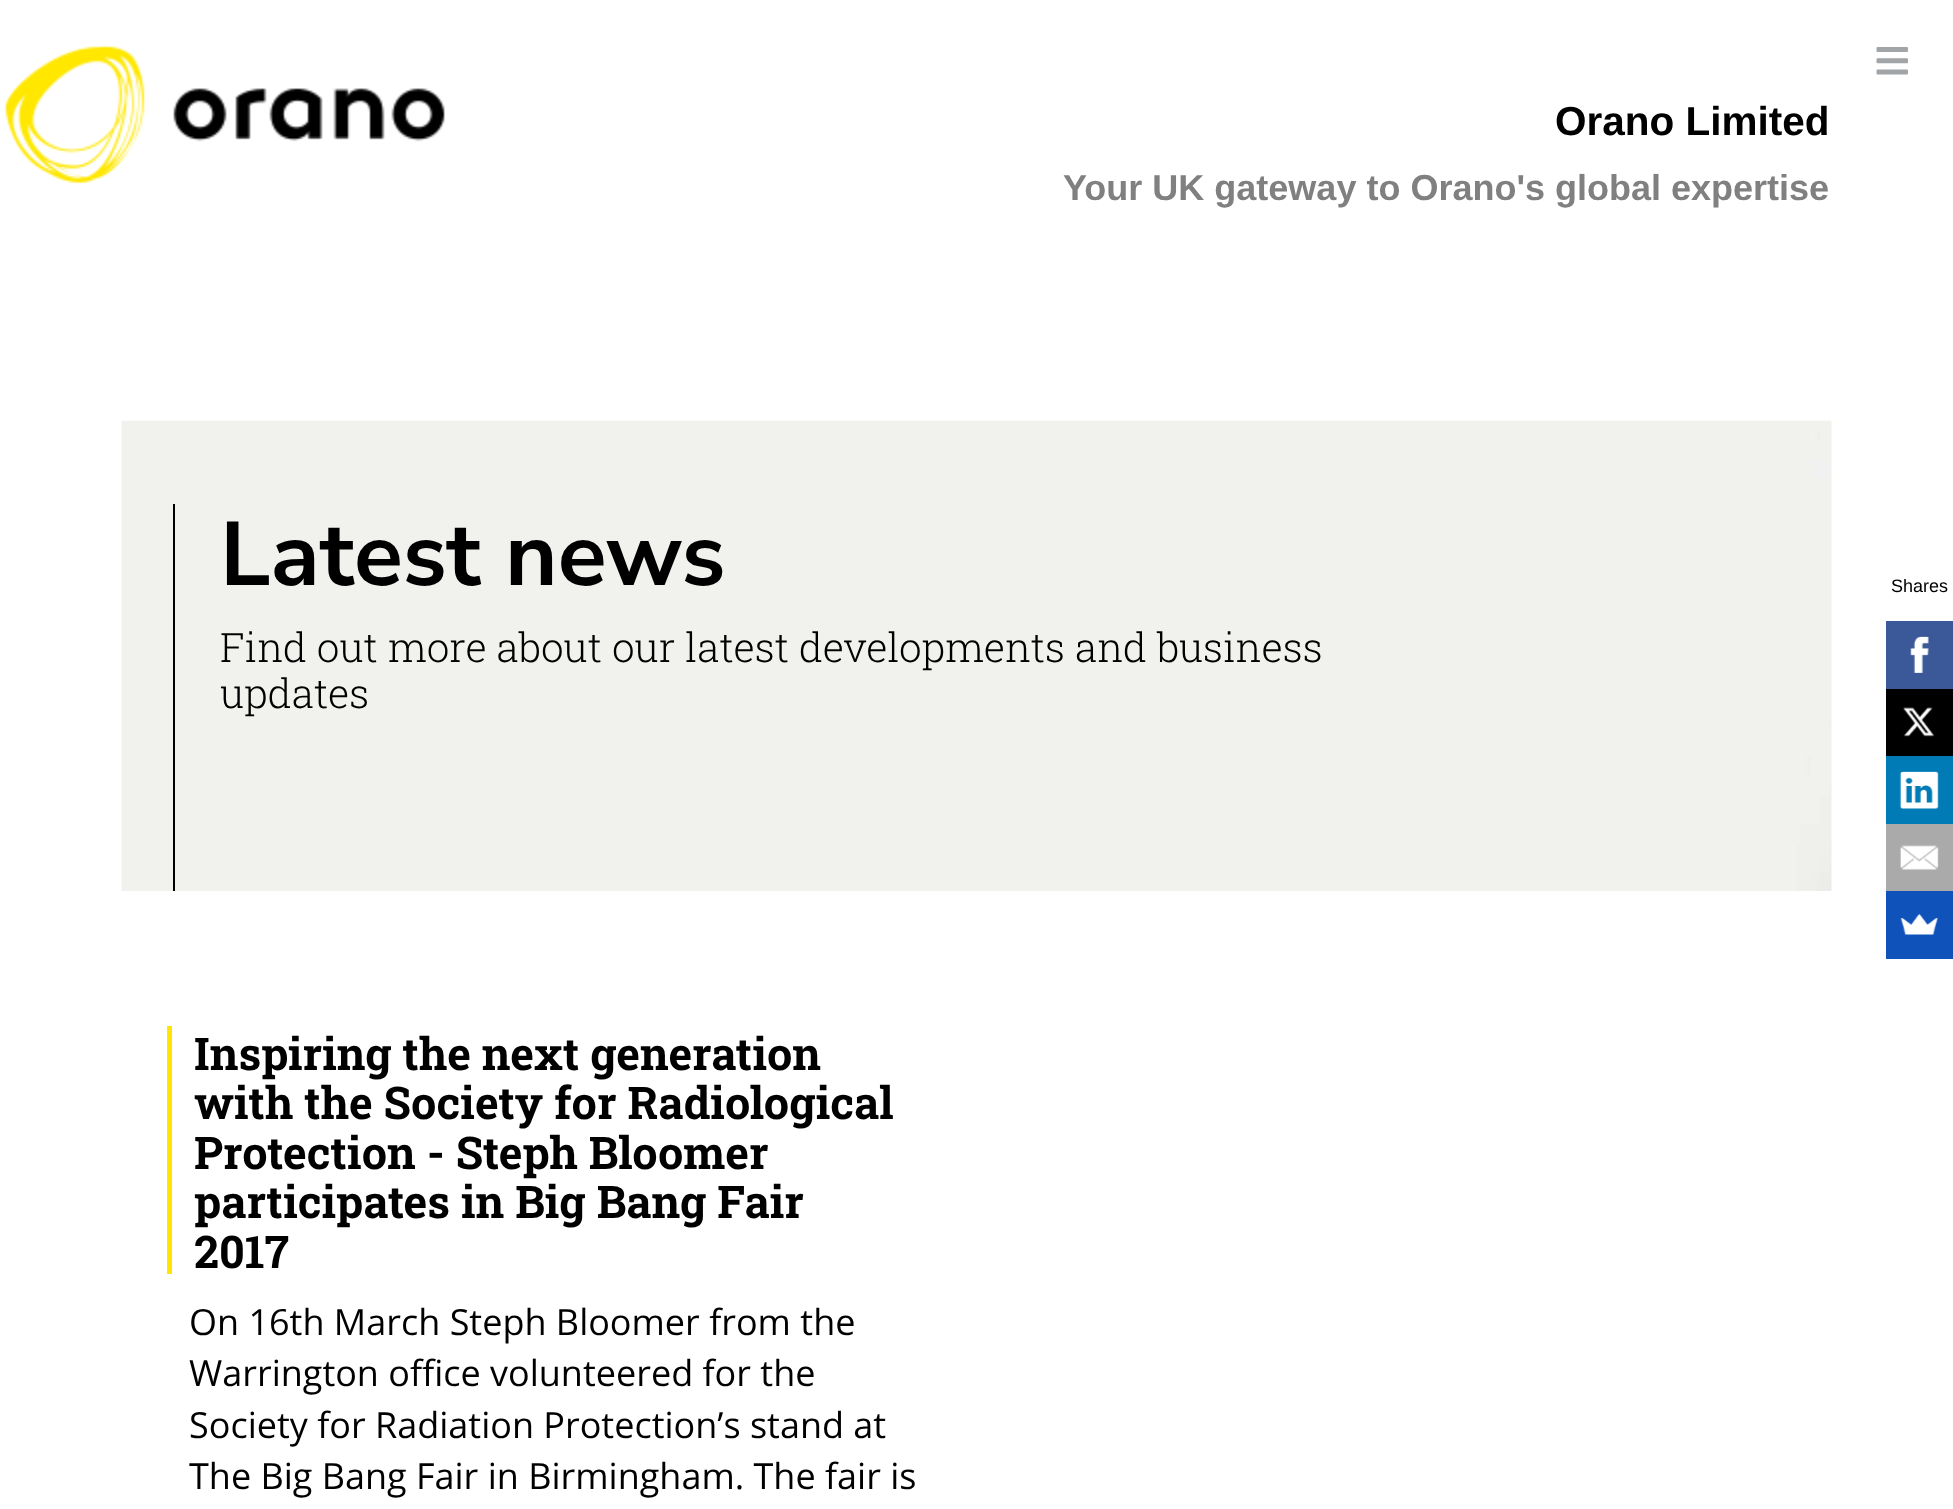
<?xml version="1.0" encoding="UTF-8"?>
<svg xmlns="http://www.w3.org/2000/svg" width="1953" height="1509">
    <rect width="100%" height="100%" fill="#FFFFFF"/>
    <image x="1876" y="47" width="32" height="28" href="img_01.png"/>
    <image x="4" y="45" width="441" height="139" href="img_02.png"/>
    <text x="1555" y="135" font-family="Liberation Sans" font-size="40.5" font-weight="700" fill="#000000">Orano Limited</text>
    <text x="1063" y="200" font-family="Liberation Sans" font-size="36" font-weight="700" fill="#808080">Your UK gateway to Orano's global expertise</text>
    <image x="121" y="420" width="1711" height="471" href="img_03.png"/>
    <rect x="173" y="504" width="2" height="387" fill="#000000"/>
    <text x="220" y="585" font-family="Nunito Sans" font-size="90" font-weight="200" fill="#000000">Latest news</text>
    <text font-family="Roboto Slab" font-size="40.5" font-weight="300" fill="#000000">
        <tspan x="220" y="662">Find out more about our latest developments and business</tspan>
        <tspan x="220" y="708">updates</tspan>
    </text>
    <rect x="167" y="1026" width="5" height="248" fill="#FFE600"/>
    <text font-family="Roboto Slab" font-size="45" font-weight="700" fill="#000000">
        <tspan x="194" y="1070">Inspiring the next generation</tspan>
        <tspan x="194" y="1119">with the Society for Radiological</tspan>
        <tspan x="194" y="1169">Protection - Steph Bloomer</tspan>
        <tspan x="194" y="1218">participates in Big Bang Fair</tspan>
        <tspan x="194" y="1268">2017</tspan>
    </text>
    <text font-family="Open Sans" font-size="36" fill="#000000">
        <tspan x="189" y="1335">On 16th March Steph Bloomer from the</tspan>
        <tspan x="189" y="1386">Warrington office volunteered for the</tspan>
        <tspan x="189" y="1438">Society for Radiation Protection’s stand at</tspan>
        <tspan x="189" y="1489">The Big Bang Fair in Birmingham. The fair is</tspan>
    </text>
    <text x="1891" y="592" font-family="Liberation Sans" font-size="18" fill="#000000">Shares</text>
    <rect x="1886" y="621" width="67" height="68" fill="#3B5998"/>
    <image x="1910" y="636" width="19" height="37" href="img_04.png"/>
    <rect x="1886" y="689" width="67" height="67" fill="#000000"/>
    <image x="1903" y="707" width="31" height="30" href="img_05.png"/>
    <rect x="1886" y="756" width="67" height="68" fill="#007BB6"/>
    <image x="1899" y="771" width="40" height="38" href="img_06.png"/>
    <rect x="1886" y="824" width="67" height="67" fill="#AAAAAA"/>
    <image x="1900" y="845" width="39" height="25" href="img_07.png"/>
    <rect x="1886" y="891" width="67" height="68" fill="#0F52BA"/>
    <image x="1900" y="914" width="38" height="21" href="img_08.png"/>
</svg>
